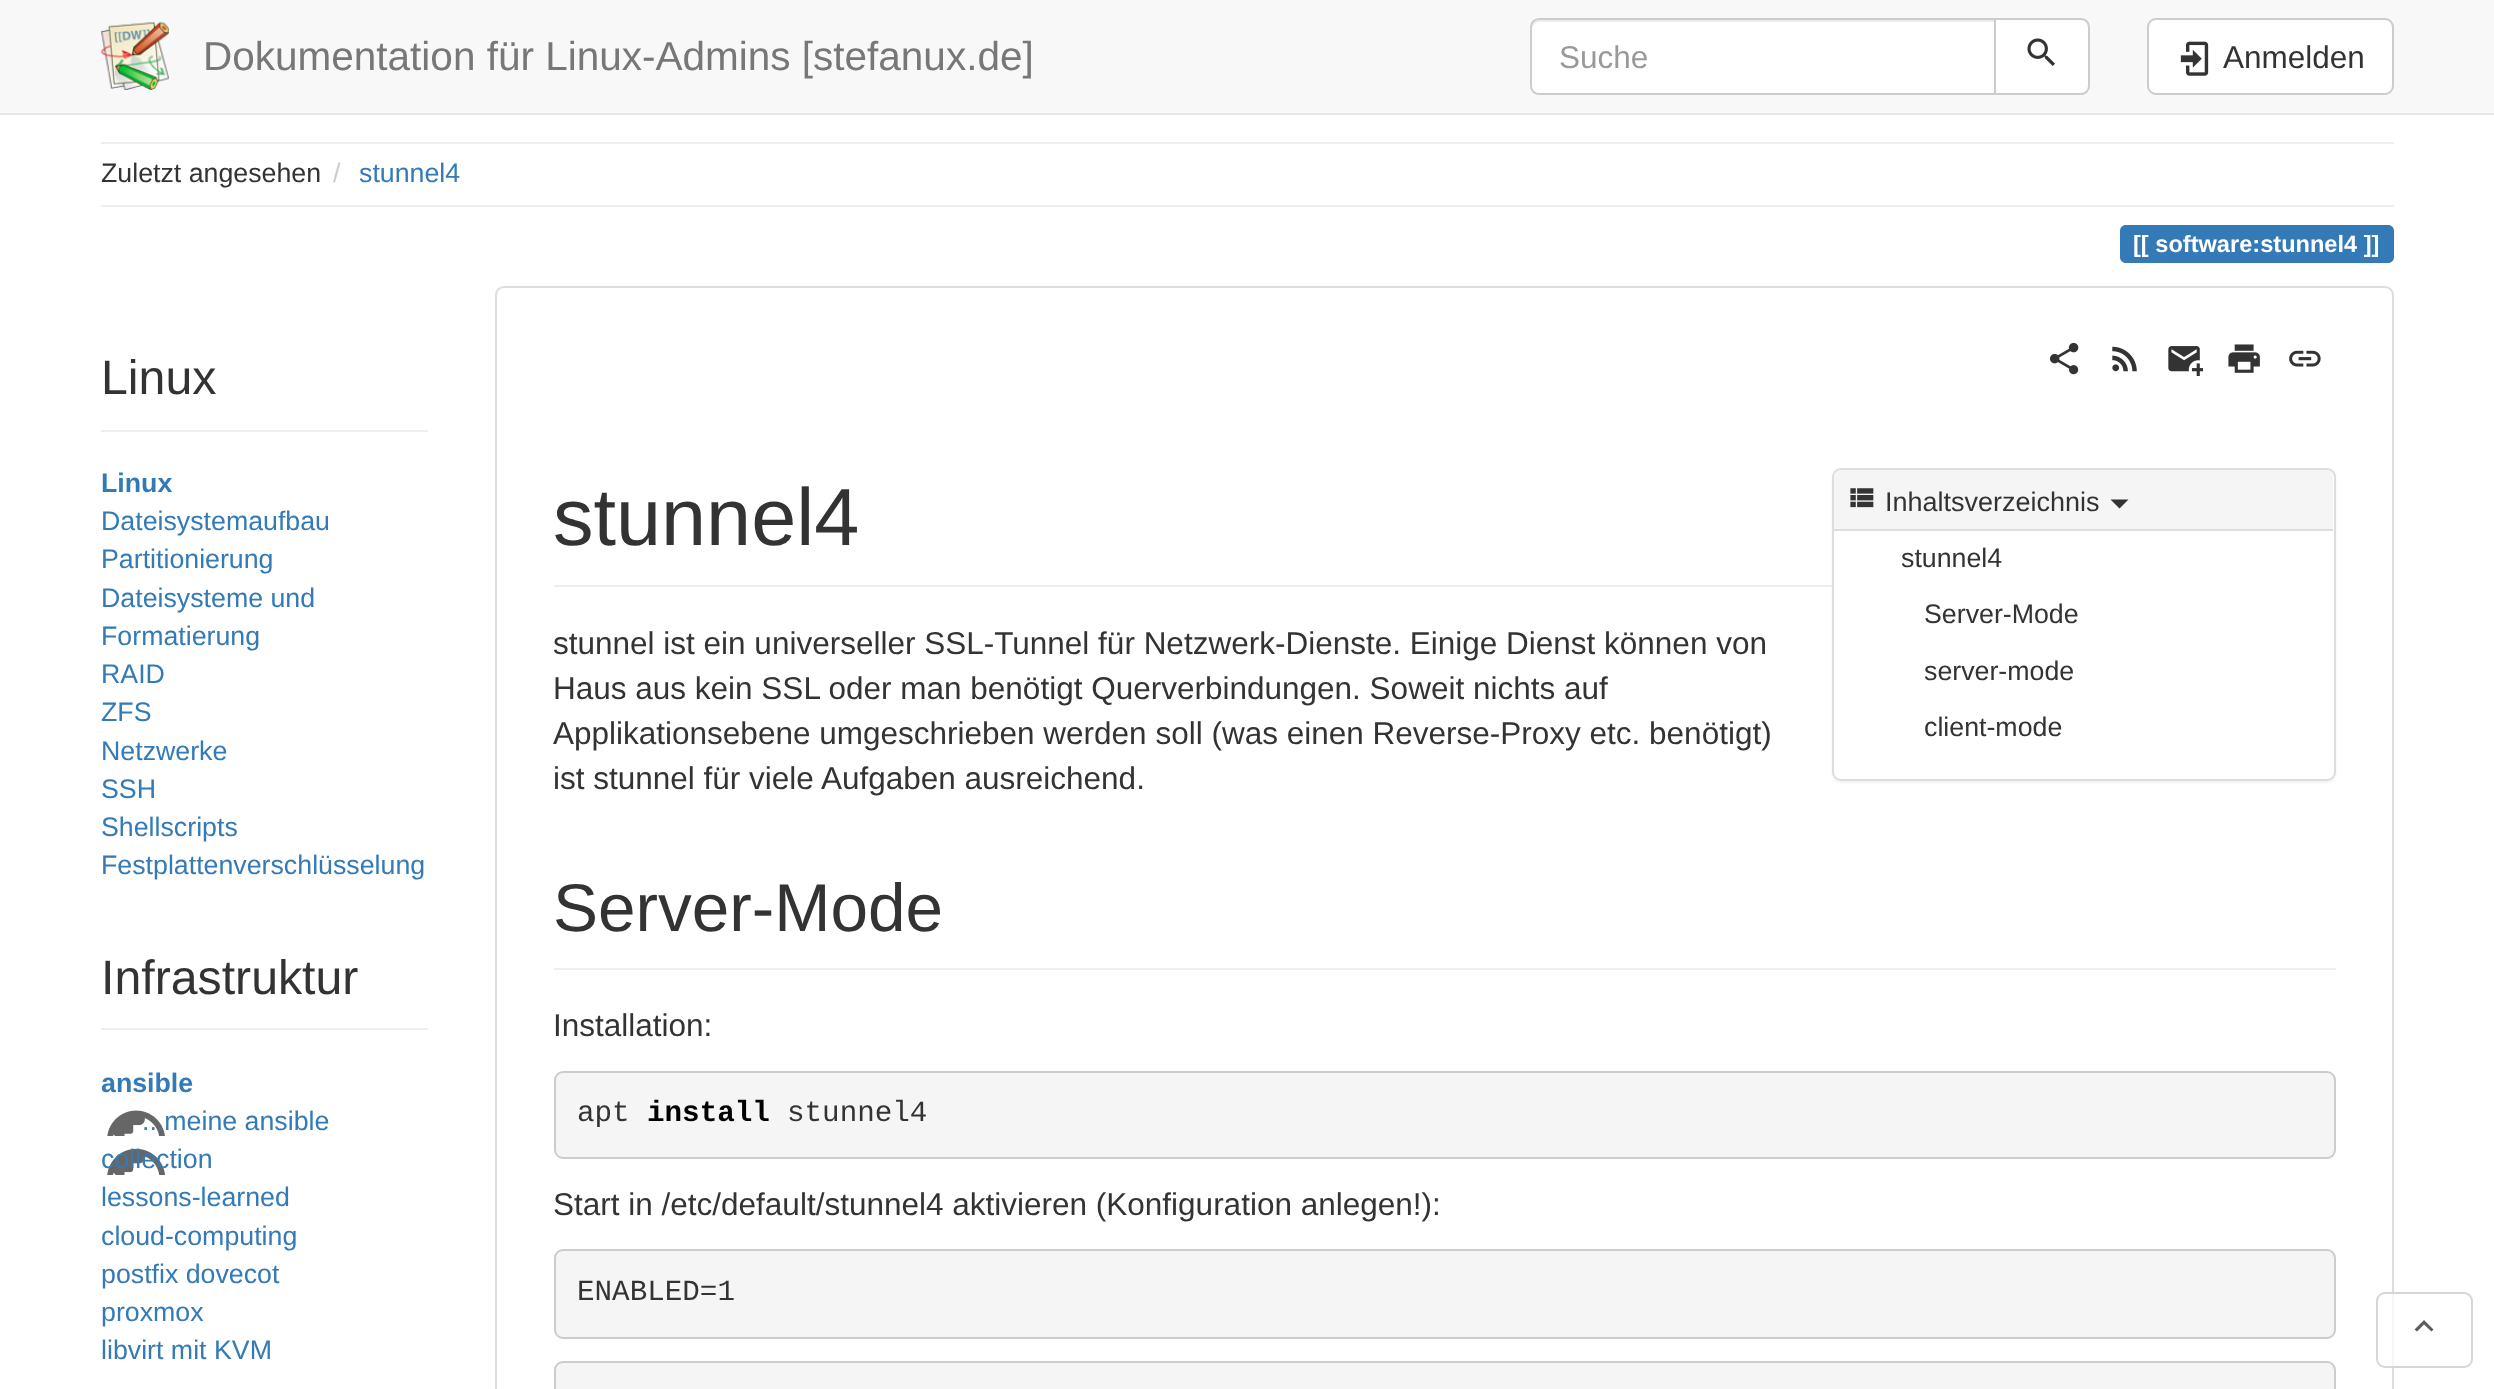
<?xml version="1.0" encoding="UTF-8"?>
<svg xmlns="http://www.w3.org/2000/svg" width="2494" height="1389">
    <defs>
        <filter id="blur1" x="-50%" y="-200%" width="200%" height="500%"><feGaussianBlur stdDeviation="1"/></filter>
    </defs>
    <rect width="100%" height="100%" fill="#FFFFFF"/>
    <rect x="0" y="0" width="2494" height="113" fill="#F8F8F8"/>
    <rect x="0" y="113" width="2494" height="2" fill="#E7E7E7"/>
    <image x="101" y="22" width="68" height="68" href="img_01.png"/>
    <text x="203" y="70" font-family="Liberation Sans" font-size="40.5" fill="#777777">Dokumentation für Linux-Admins [stefanux.de]</text>
    <path d="M 1539 18 H 1996 V 95 H 1539 C 1534 95 1530 91 1530 86 V 27 C 1530 22 1534 18 1539 18 Z" fill="#FFFFFF"/>
    <path d="M 1539 22 H 1994 V 20 H 1539 C 1535 20 1532 23 1532 27 V 29 C 1532 26 1535 22 1539 22 Z" fill="#ECECEC"/>
    <path d="M 1539 19 H 1995 V 94 H 1539 C 1534.5 94 1531 90.5 1531 86 V 27 C 1531 22.5 1534.5 19 1539 19 Z" fill="none" stroke="#CCCCCC" stroke-width="2"/>
    <text x="1559" y="68" font-family="Liberation Sans" font-size="31.5" fill="#999999">Suche</text>
    <path d="M 1995 19 H 2081 C 2085.5 19 2089 22.5 2089 27 V 86 C 2089 90.5 2085.5 94 2081 94 H 1995 Z" fill="#FFFFFF" stroke="#CCCCCC" stroke-width="2"/>
    <image x="2027" y="38" width="28" height="28" href="img_02.png"/>
    <rect x="2148" y="19" width="245" height="75" rx="8" fill="#FFFFFF" stroke="#CCCCCC" stroke-width="2"/>
    <image x="2180" y="41" width="29" height="35" href="img_03.png"/>
    <text x="2223" y="68" font-family="Liberation Sans" font-size="31.5" fill="#333333">Anmelden</text>
    <rect x="101" y="142" width="2293" height="2" fill="#EEEEEE"/>
    <text x="101" y="182" font-family="Liberation Sans" font-size="26.75" fill="#333333">Zuletzt angesehen</text>
    <text x="333" y="182" font-family="Liberation Sans" font-size="26.75" fill="#CCCCCC">/</text>
    <text x="359" y="182" font-family="Liberation Sans" font-size="26.75" fill="#337AB7">stunnel4</text>
    <rect x="101" y="205" width="2293" height="2" fill="#EEEEEE"/>
    <path d="M 2126 225 H 2156 V 263 H 2126 C 2122.5 263 2120 260.5 2120 257 V 231 C 2120 227.5 2122.5 225 2126 225 Z" fill="#337AB7"/>
    <rect x="2156" y="225" width="202" height="38" fill="#337AB7"/>
    <path d="M 2358 225 H 2388 C 2391.5 225 2394 227.5 2394 231 V 257 C 2394 260.5 2391.5 263 2388 263 H 2358 Z" fill="#337AB7"/>
    <text x="2133" y="252" font-family="Liberation Sans" font-size="23.6" font-weight="700" fill="#FFFFFF">[[ software:stunnel4 ]]</text>
    <rect x="101" y="430" width="327" height="2" fill="#EEEEEE"/>
    <text x="101" y="394" font-family="Liberation Sans" font-size="48.25" fill="#333333">Linux</text>
    <text x="101" y="492" font-family="Liberation Sans" font-size="26.75" font-weight="700" fill="#337AB7">Linux</text>
    <text font-family="Liberation Sans" font-size="26.75" fill="#337AB7">
        <tspan x="101" y="530">Dateisystemaufbau</tspan>
        <tspan x="101" y="568">Partitionierung</tspan>
        <tspan x="101" y="607">Dateisysteme und</tspan>
        <tspan x="101" y="645">Formatierung</tspan>
        <tspan x="101" y="683">RAID</tspan>
        <tspan x="101" y="721">ZFS</tspan>
        <tspan x="101" y="760">Netzwerke</tspan>
        <tspan x="101" y="798">SSH</tspan>
        <tspan x="101" y="836">Shellscripts</tspan>
        <tspan x="101" y="874">Festplattenverschlüsselung</tspan>
    </text>
    <rect x="101" y="1028" width="327" height="2" fill="#EEEEEE"/>
    <text x="101" y="994" font-family="Liberation Sans" font-size="48.25" fill="#333333">Infrastruktur</text>
    <text x="101" y="1092" font-family="Liberation Sans" font-size="26.75" font-weight="700" fill="#337AB7">ansible</text>
    <image x="107" y="1110" width="58" height="65" href="img_04.png"/>
    <text x="142" y="1130" font-family="Liberation Sans" font-size="26.75" fill="#337AB7">...meine ansible</text>
    <text font-family="Liberation Sans" font-size="26.75" fill="#337AB7">
        <tspan x="101" y="1168">collection</tspan>
        <tspan x="101" y="1206">lessons-learned</tspan>
        <tspan x="101" y="1245">cloud-computing</tspan>
        <tspan x="101" y="1283">postfix dovecot</tspan>
        <tspan x="101" y="1321">proxmox</tspan>
        <tspan x="101" y="1359">libvirt mit KVM</tspan>
    </text>
    <rect x="496" y="287" width="1897" height="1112" rx="8" fill="none" stroke="#DDDDDD" stroke-width="2"/>
    <image x="2050" y="342" width="29" height="33" href="img_05.png"/>
    <image x="2112" y="346" width="25" height="26" href="img_06.png"/>
    <image x="2168" y="346" width="35" height="30" href="img_07.png"/>
    <image x="2228" y="344" width="32" height="29" href="img_08.png"/>
    <image x="2289" y="350" width="32" height="17" href="img_09.png"/>
    <rect x="554" y="585" width="1278" height="2" fill="#EEEEEE"/>
    <text x="553" y="545" font-family="Liberation Sans" font-size="81" fill="#333333">stunnel4</text>
    <text font-family="Liberation Sans" font-size="31.5" fill="#333333">
        <tspan x="553" y="654">stunnel ist ein universeller SSL-Tunnel für Netzwerk-Dienste. Einige Dienst können von</tspan>
        <tspan x="553" y="699">Haus aus kein SSL oder man benötigt Querverbindungen. Soweit nichts auf</tspan>
        <tspan x="553" y="744">Applikationsebene umgeschrieben werden soll (was einen Reverse-Proxy etc. benötigt)</tspan>
        <tspan x="553" y="789">ist stunnel für viele Aufgaben ausreichend.</tspan>
    </text>
    <rect x="554" y="968" width="1782" height="2" fill="#EEEEEE"/>
    <text x="553" y="931" font-family="Liberation Sans" font-size="67.5" fill="#333333">Server-Mode</text>
    <text x="553" y="1036" font-family="Liberation Sans" font-size="31.5" fill="#333333">Installation:</text>
    <rect x="555" y="1072" width="1780" height="86" rx="8" fill="#F5F5F5" stroke="#CCCCCC" stroke-width="2"/>
    <text x="577" y="1121" font-family="Liberation Mono" font-size="29.25" fill="#333333">apt</text>
    <text x="647" y="1121" font-family="Liberation Mono" font-size="29.25" font-weight="700" fill="#000000">install</text>
    <text x="787" y="1121" font-family="Liberation Mono" font-size="29.25" fill="#333333">stunnel4</text>
    <text x="553" y="1215" font-family="Liberation Sans" font-size="31.5" fill="#333333">Start in /etc/default/stunnel4 aktivieren (Konfiguration anlegen!):</text>
    <rect x="555" y="1250" width="1780" height="88" rx="8" fill="#F5F5F5" stroke="#CCCCCC" stroke-width="2"/>
    <text x="577" y="1300" font-family="Liberation Mono" font-size="29.25" fill="#333333">ENABLED=1</text>
    <rect x="555" y="1362" width="1780" height="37" rx="8" fill="#F5F5F5" stroke="#CCCCCC" stroke-width="2"/>
    <rect x="1832" y="470" width="504" height="313" rx="9" fill="#000000" fill-opacity="0.05" filter="url(#blur1)"/>
    <rect x="1833" y="469" width="502" height="311" rx="8" fill="#FFFFFF" stroke="#DDDDDD" stroke-width="2"/>
    <path d="M 1841 470 H 2326 C 2330 470 2333 473 2333 477 V 531 H 1834 V 477 C 1834 473 1837 470 1841 470 Z" fill="#F5F5F5"/>
    <rect x="1834" y="529" width="499" height="2" fill="#DDDDDD"/>
    <image x="1850" y="488" width="24" height="20" href="img_10.png"/>
    <text x="1885" y="511" font-family="Liberation Sans" font-size="27" fill="#333333">Inhaltsverzeichnis</text>
    <path d="M 2110.5 499.5 H 2128.5 L 2119.5 508.5 Z" fill="#333333"/>
    <text x="1901" y="567" font-family="Liberation Sans" font-size="26.75" fill="#333333">stunnel4</text>
    <text x="1924" y="623" font-family="Liberation Sans" font-size="26.75" fill="#333333">Server-Mode</text>
    <text x="1924" y="680" font-family="Liberation Sans" font-size="26.75" fill="#333333">server-mode</text>
    <text x="1924" y="736" font-family="Liberation Sans" font-size="26.75" fill="#333333">client-mode</text>
    <rect x="2376" y="1292" width="97" height="76" rx="9" fill="#FFFFFF" fill-opacity="0.8"/>
    <rect x="2377" y="1293" width="95" height="74" rx="8" fill="none" stroke="#CCCCCC" stroke-opacity="0.8" stroke-width="2"/>
    <path d="M 2417 1331.5 L 2424 1324.5 L 2431.5 1331.5 L 2433.5 1329.5 L 2424 1320 L 2414.5 1329.5 Z" fill="#5C5C5C"/>
</svg>
